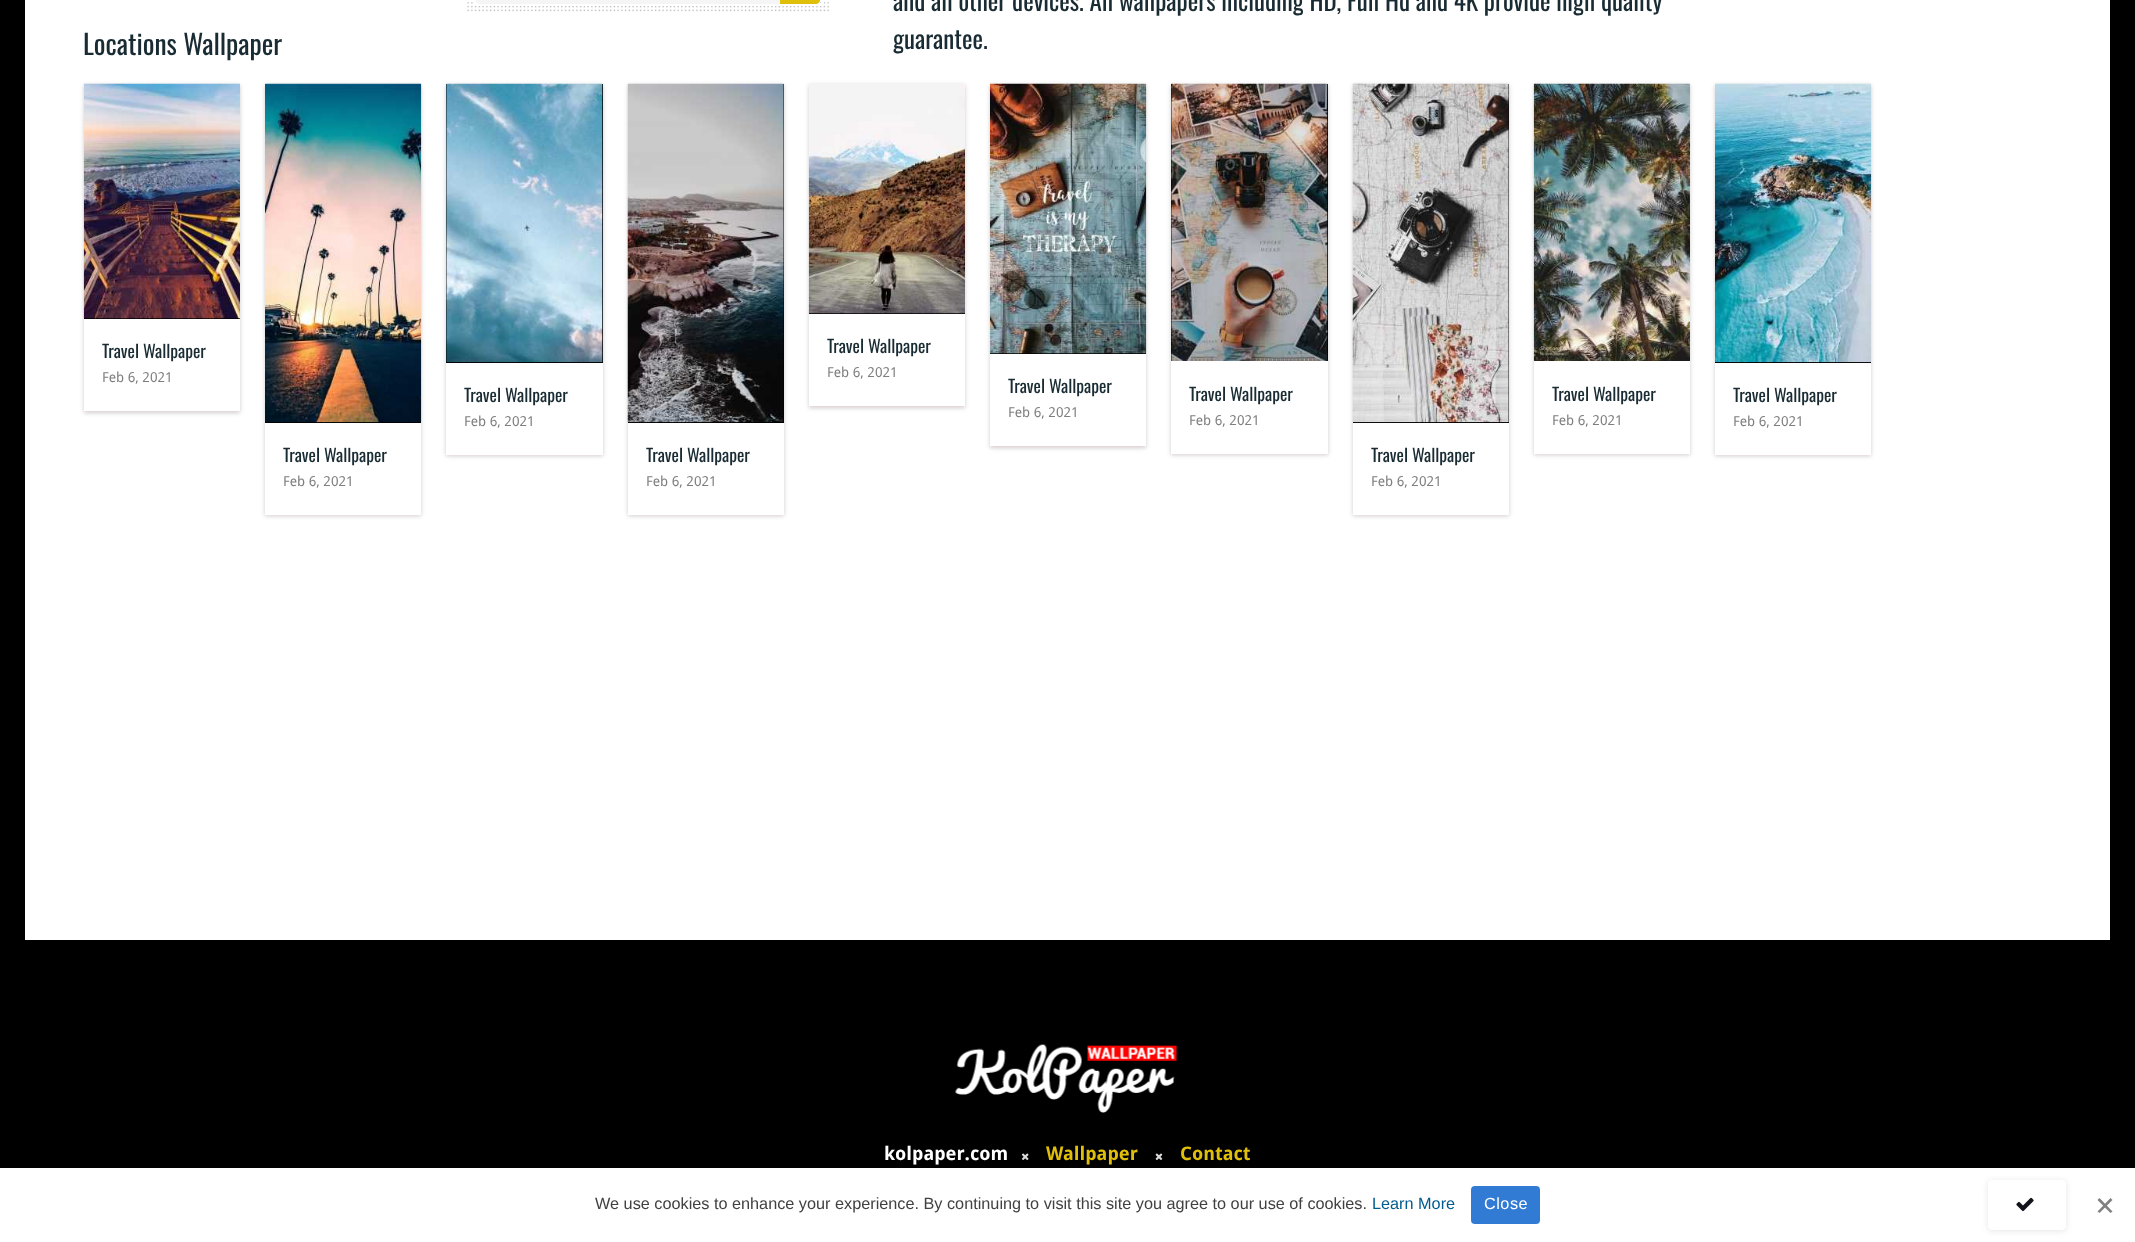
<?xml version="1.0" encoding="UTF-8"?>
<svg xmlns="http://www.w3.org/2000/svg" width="2135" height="1242">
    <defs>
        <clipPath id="clip1"><path d="M 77 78 H 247 V 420 H 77 Z M 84 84 H 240 V 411 H 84 Z" clip-rule="evenodd"/></clipPath>
        <filter id="blur1" x="-50%" y="-200%" width="200%" height="500%"><feGaussianBlur stdDeviation="2"/></filter>
        <clipPath id="clip2"><path d="M 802 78 H 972 V 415 H 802 Z M 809 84 H 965 V 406 H 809 Z" clip-rule="evenodd"/></clipPath>
        <clipPath id="clip3"><path d="M 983 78 H 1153 V 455 H 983 Z M 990 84 H 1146 V 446 H 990 Z" clip-rule="evenodd"/></clipPath>
        <clipPath id="clip4"><path d="M 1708 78 H 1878 V 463 H 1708 Z M 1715 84 H 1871 V 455 H 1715 Z" clip-rule="evenodd"/></clipPath>
        <clipPath id="clip5"><path d="M 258 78 H 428 V 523 H 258 Z M 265 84 H 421 V 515 H 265 Z" clip-rule="evenodd"/></clipPath>
        <filter id="blur2" x="-50%" y="-200%" width="200%" height="500%"><feGaussianBlur stdDeviation="31"/></filter>
        <clipPath id="clip6"><path d="M 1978 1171 H 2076 V 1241 H 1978 Z M 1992 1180 H 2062 C 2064 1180 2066 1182 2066 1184 V 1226 C 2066 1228 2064 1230 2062 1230 H 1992 C 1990 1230 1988 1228 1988 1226 V 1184 C 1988 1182 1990 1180 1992 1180 Z" clip-rule="evenodd"/></clipPath>
        <filter id="blur3" x="-50%" y="-200%" width="200%" height="500%"><feGaussianBlur stdDeviation="3"/></filter>
    </defs>
    <rect width="100%" height="100%" fill="#000000"/>
    <rect x="25" y="0" width="2085" height="940" fill="#FFFFFF"/>
    <image x="467" y="2" width="362" height="10" href="img_01.png"/>
    <rect x="475.5" y="-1.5" width="347" height="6" fill="none" stroke="#FFFFFF" stroke-width="3"/>
    <rect x="476" y="-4" width="344" height="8" rx="4" fill="#F5F5F5"/>
    <path d="M 780 -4 H 816 C 818 -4 820 -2 820 0 C 820 2 818 4 816 4 H 780 Z" fill="#E0BF0A"/>
    <text font-family="Oswald" font-size="25" fill="#192B33">
        <tspan x="893" y="11">and all other devices. All wallpapers including HD, Full Hd and 4K provide high quality</tspan>
        <tspan x="893" y="49">guarantee.</tspan>
    </text>
    <text x="83" y="55" font-family="Oswald" font-size="27.5" fill="#192B33">Locations Wallpaper</text>
    <g clip-path="url(#clip1)">
        <rect x="84" y="85" width="156" height="328" fill="#221919" fill-opacity="0.2" filter="url(#blur1)"/>
    </g>
    <rect x="84" y="318" width="156" height="1" fill="#000000"/>
    <image x="83" y="83" width="157" height="236" href="img_02.png"/>
    <text x="102" y="358" font-family="Oswald" font-size="17.5" fill="#192B33">Travel Wallpaper</text>
    <text x="102" y="382" font-family="Droid Sans" font-size="13.75" fill="#7F7F7F">Feb 6, 2021</text>
    <g clip-path="url(#clip2)">
        <rect x="809" y="85" width="156" height="323" fill="#221919" fill-opacity="0.2" filter="url(#blur1)"/>
    </g>
    <rect x="809" y="313" width="156" height="1" fill="#000000"/>
    <image x="808" y="84" width="157" height="230" href="img_03.png"/>
    <text x="827" y="353" font-family="Oswald" font-size="17.5" fill="#192B33">Travel Wallpaper</text>
    <text x="827" y="377" font-family="Droid Sans" font-size="13.75" fill="#7F7F7F">Feb 6, 2021</text>
    <rect x="446" y="85" width="157" height="371" fill="#221919" fill-opacity="0.2" filter="url(#blur1)"/>
    <rect x="446" y="363" width="157" height="92" fill="#FFFFFF"/>
    <rect x="446" y="84" width="157" height="279" fill="#000000"/>
    <image x="446" y="83" width="157" height="280" href="img_04.png"/>
    <text x="464" y="402" font-family="Oswald" font-size="17.5" fill="#192B33">Travel Wallpaper</text>
    <text x="464" y="426" font-family="Droid Sans" font-size="13.75" fill="#7F7F7F">Feb 6, 2021</text>
    <g clip-path="url(#clip3)">
        <rect x="990" y="85" width="156" height="363" fill="#221919" fill-opacity="0.2" filter="url(#blur1)"/>
    </g>
    <rect x="990" y="353" width="156" height="1" fill="#000000"/>
    <image x="990" y="83" width="157" height="271" href="img_05.png"/>
    <text x="1008" y="393" font-family="Oswald" font-size="17.5" fill="#192B33">Travel Wallpaper</text>
    <text x="1008" y="417" font-family="Droid Sans" font-size="13.75" fill="#7F7F7F">Feb 6, 2021</text>
    <rect x="1171" y="85" width="157" height="370" fill="#221919" fill-opacity="0.2" filter="url(#blur1)"/>
    <rect x="1171" y="361" width="157" height="93" fill="#FFFFFF"/>
    <rect x="1171" y="84" width="157" height="277" fill="#000000"/>
    <image x="1171" y="83" width="157" height="278" href="img_06.png"/>
    <text x="1189" y="401" font-family="Oswald" font-size="17.5" fill="#192B33">Travel Wallpaper</text>
    <text x="1189" y="425" font-family="Droid Sans" font-size="13.75" fill="#7F7F7F">Feb 6, 2021</text>
    <rect x="1534" y="85" width="156" height="370" fill="#221919" fill-opacity="0.2" filter="url(#blur1)"/>
    <rect x="1534" y="361" width="156" height="93" fill="#FFFFFF"/>
    <image x="1533" y="83" width="157" height="278" href="img_07.png"/>
    <text x="1552" y="401" font-family="Oswald" font-size="17.5" fill="#192B33">Travel Wallpaper</text>
    <text x="1552" y="425" font-family="Droid Sans" font-size="13.75" fill="#7F7F7F">Feb 6, 2021</text>
    <g clip-path="url(#clip4)">
        <rect x="1715" y="85" width="156" height="371" fill="#221919" fill-opacity="0.2" filter="url(#blur1)"/>
    </g>
    <rect x="1715" y="362" width="156" height="1" fill="#000000"/>
    <image x="1715" y="83" width="157" height="280" href="img_08.png"/>
    <text x="1733" y="402" font-family="Oswald" font-size="17.5" fill="#192B33">Travel Wallpaper</text>
    <text x="1733" y="426" font-family="Droid Sans" font-size="13.75" fill="#7F7F7F">Feb 6, 2021</text>
    <g clip-path="url(#clip5)">
        <rect x="265" y="85" width="156" height="431" fill="#221919" fill-opacity="0.2" filter="url(#blur1)"/>
    </g>
    <rect x="265" y="422" width="156" height="1" fill="#000000"/>
    <image x="265" y="83" width="157" height="340" href="img_09.png"/>
    <text x="283" y="462" font-family="Oswald" font-size="17.5" fill="#192B33">Travel Wallpaper</text>
    <text x="283" y="486" font-family="Droid Sans" font-size="13.75" fill="#7F7F7F">Feb 6, 2021</text>
    <rect x="628" y="85" width="156" height="431" fill="#221919" fill-opacity="0.2" filter="url(#blur1)"/>
    <rect x="628" y="423" width="156" height="92" fill="#FFFFFF"/>
    <rect x="628" y="84" width="156" height="339" fill="#000000"/>
    <image x="627" y="83" width="157" height="340" href="img_10.png"/>
    <text x="646" y="462" font-family="Oswald" font-size="17.5" fill="#192B33">Travel Wallpaper</text>
    <text x="646" y="486" font-family="Droid Sans" font-size="13.75" fill="#7F7F7F">Feb 6, 2021</text>
    <rect x="1353" y="85" width="156" height="431" fill="#221919" fill-opacity="0.2" filter="url(#blur1)"/>
    <rect x="1353" y="423" width="156" height="92" fill="#FFFFFF"/>
    <rect x="1353" y="84" width="156" height="339" fill="#000000"/>
    <image x="1352" y="83" width="157" height="340" href="img_11.png"/>
    <text x="1371" y="462" font-family="Oswald" font-size="17.5" fill="#192B33">Travel Wallpaper</text>
    <text x="1371" y="486" font-family="Droid Sans" font-size="13.75" fill="#7F7F7F">Feb 6, 2021</text>
    <image x="955" y="1044" width="222" height="69" href="img_13.png"/>
    <image x="1021" y="1153" width="8" height="8" href="img_14.png"/>
    <image x="1155" y="1153" width="8" height="7" href="img_15.png"/>
    <rect x="0" y="1174" width="2135" height="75" fill="#000000" fill-opacity="0.5" filter="url(#blur2)"/>
    <rect x="0" y="1168" width="2135" height="74" fill="#FFFFFF"/>
    <g clip-path="url(#clip6)">
        <rect x="1988" y="1181" width="78" height="50" rx="4" fill="#000000" fill-opacity="0.1" filter="url(#blur3)"/>
    </g>
    <image x="2016" y="1197" width="18" height="15" href="img_12.png"/>
    <text x="884" y="1160" font-family="Droid Sans" font-size="18.75" font-weight="700" fill="#FFFFFF">kolpaper.com</text>
    <text x="1046" y="1160" font-family="Droid Sans" font-size="18.75" font-weight="700" fill="#E0BF0A">Wallpaper</text>
    <text x="1180" y="1160" font-family="Droid Sans" font-size="18.75" font-weight="700" fill="#E0BF0A">Contact</text>
    <text x="595" y="1209" font-family="Liberation Sans" font-size="16.25" fill="#414141">We use cookies to enhance your experience. By continuing to visit this site you agree to our use of cookies.</text>
    <text x="1372" y="1209" font-family="Liberation Sans" font-size="16.25" fill="#005B90">Learn More</text>
    <rect x="1471" y="1186" width="69" height="38" rx="4" fill="#317BD5"/>
    <text x="1484" y="1209" font-family="Liberation Sans" font-size="16.25" letter-spacing="0.5" fill="#FFFFFF">Close</text>
    <path d="M 2110.5 1198 L 2112.5 1200 L 2099.5 1213 L 2097.5 1211.5 Z" fill="#808080"/>
    <path d="M 2097.5 1200 L 2099.5 1198 L 2112.5 1211.5 L 2110.5 1213 Z" fill="#808080"/>
</svg>
